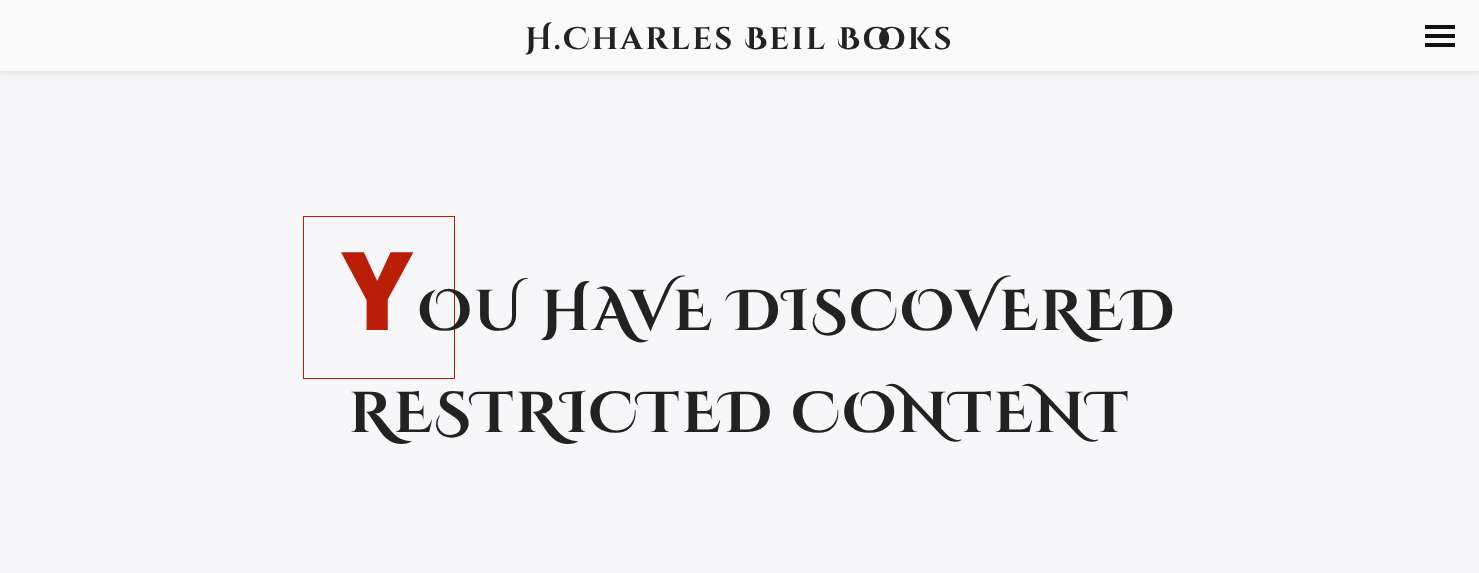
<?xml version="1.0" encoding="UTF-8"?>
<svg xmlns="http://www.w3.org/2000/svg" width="1479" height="573">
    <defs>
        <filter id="blur1" x="-50%" y="-200%" width="200%" height="500%"><feGaussianBlur stdDeviation="6"/></filter>
    </defs>
    <rect width="100%" height="100%" fill="#F7F7FA"/>
    <rect x="-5" y="-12" width="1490" height="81" fill="#000000" fill-opacity="0.2" filter="url(#blur1)"/>
    <rect x="0" y="0" width="1479" height="71" fill="#FAFAFA"/>
    <text x="525" y="49" font-family="Cinzel Decorative" font-size="31.25" font-weight="700" letter-spacing="2.5" fill="#222222">H.Charles Beil Books</text>
    <rect x="1425" y="25" width="30" height="4" fill="#111111"/>
    <rect x="1425" y="34" width="30" height="4" fill="#111111"/>
    <rect x="1425" y="43" width="30" height="4" fill="#111111"/>
    <rect x="303.5" y="216.5" width="151" height="162" fill="none" stroke="#BB1E06"/>
    <text x="341" y="330" font-family="Noto Sans" font-size="109" font-weight="900" letter-spacing="2.5" fill="#BB1E06">Y</text>
    <text x="418" y="330" font-family="Cinzel Decorative" font-size="57.5" font-weight="700" letter-spacing="2.5" fill="#222222">OU HAVE DISCOVERED</text>
    <text x="349" y="432" font-family="Cinzel Decorative" font-size="57.5" font-weight="700" letter-spacing="2.5" fill="#222222">RESTRICTED CONTENT</text>
</svg>
